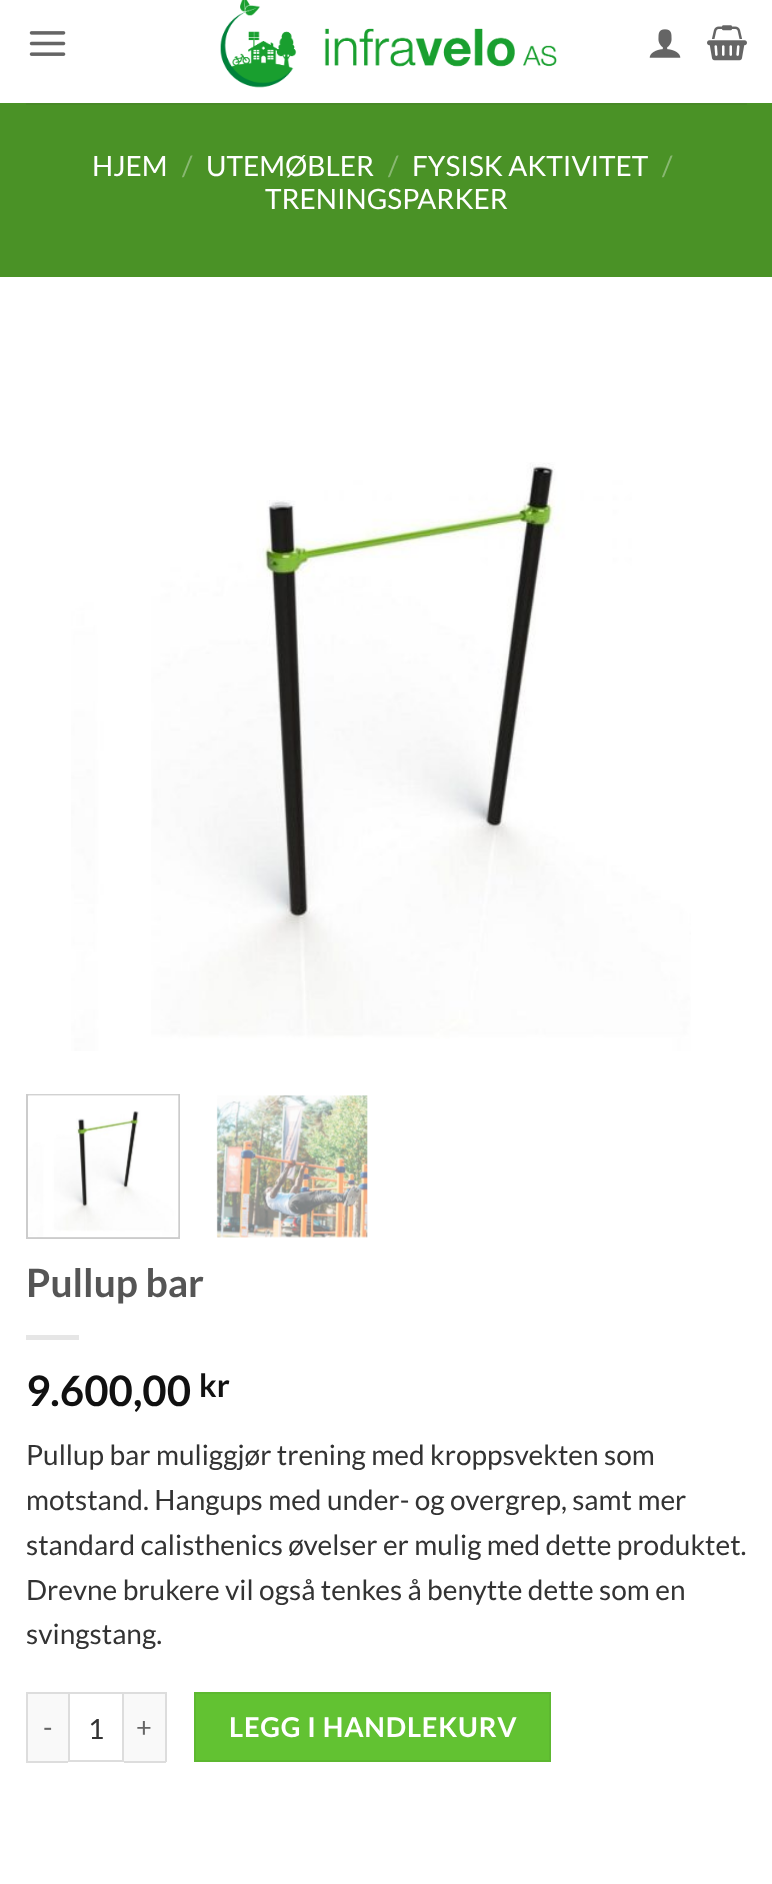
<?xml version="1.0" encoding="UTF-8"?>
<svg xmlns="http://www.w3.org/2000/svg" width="772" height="1884">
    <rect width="100%" height="100%" fill="#FFFFFF"/>
    <image x="29" y="31" width="37" height="25" href="img_01.png"/>
    <image x="220" y="0" width="337" height="88" href="img_02.png"/>
    <image x="649" y="29" width="32" height="29" href="img_03.png"/>
    <image x="707" y="25" width="40" height="36" href="img_04.png"/>
    <rect x="0" y="103" width="772" height="174" fill="#4A9226"/>
    <rect x="26" y="103" width="721" height="2" fill="#488927"/>
    <text x="92" y="176" font-family="Lato" font-size="28" fill="#FFFFFF">HJEM</text>
    <text x="182" y="176" font-family="Lato" font-size="28" fill="#89B872">/</text>
    <text x="206" y="176" font-family="Lato" font-size="28" fill="#FFFFFF">UTEMØBLER</text>
    <text x="388" y="176" font-family="Lato" font-size="28" fill="#89B872">/</text>
    <text x="412" y="176" font-family="Lato" font-size="28" fill="#FFFFFF">FYSISK AKTIVITET</text>
    <text x="662" y="176" font-family="Lato" font-size="28" fill="#89B872">/</text>
    <text x="265" y="209" font-family="Lato" font-size="28" fill="#FFFFFF">TRENINGSPARKER</text>
    <image x="71" y="462" width="620" height="589" href="img_05.png"/>
    <rect x="27" y="1095" width="152" height="143" fill="none" stroke="#CCCCCC" stroke-width="2"/>
    <image x="28" y="1094" width="151" height="144" href="img_06.png"/>
    <image x="216" y="1095" width="152" height="143" href="img_07.png"/>
    <text x="26" y="1297" font-family="Lato" font-size="39" font-weight="700" fill="#555555">Pullup bar</text>
    <rect x="26" y="1335" width="53" height="5" fill="#E6E6E6"/>
    <text x="26" y="1406" font-family="Lato" font-size="42" font-weight="700" fill="#111111">9.600,00</text>
    <text x="199" y="1397" font-family="Lato" font-size="32" font-weight="700" fill="#111111">kr</text>
    <text font-family="Lato" font-size="28" fill="#333333">
        <tspan x="26" y="1465">Pullup bar muliggjør trening med kroppsvekten som</tspan>
        <tspan x="26" y="1510">motstand. Hangups med under- og overgrep, samt mer</tspan>
        <tspan x="26" y="1555">standard calisthenics øvelser er mulig med dette produktet.</tspan>
        <tspan x="26" y="1600">Drevne brukere vil også tenkes å benytte dette som en</tspan>
        <tspan x="26" y="1644">svingstang.</tspan>
    </text>
    <rect x="28" y="1694" width="40" height="67" fill="#F9F9F9"/>
    <rect x="26" y="1692" width="42" height="2" fill="#DDDDDD"/>
    <rect x="26" y="1761" width="42" height="2" fill="#DDDDDD"/>
    <rect x="26" y="1692" width="2" height="70" fill="#DDDDDD"/>
    <text x="43" y="1737" font-family="Lato" font-size="27.25" letter-spacing="0.8" fill="#666666">-</text>
    <rect x="69" y="1693" width="54" height="68" fill="none" stroke="#DDDDDD" stroke-width="2"/>
    <text x="88" y="1739" font-family="Lato" font-size="28" fill="#333333">1</text>
    <rect x="124" y="1694" width="41" height="67" fill="#F9F9F9"/>
    <rect x="124" y="1692" width="42" height="2" fill="#DDDDDD"/>
    <rect x="165" y="1692" width="2" height="70" fill="#DDDDDD"/>
    <rect x="124" y="1761" width="42" height="2" fill="#DDDDDD"/>
    <text x="136" y="1737" font-family="Lato" font-size="27.25" letter-spacing="0.8" fill="#666666">+</text>
    <rect x="195" y="1693" width="355" height="68" fill="#62C232" stroke="#5DB830" stroke-width="2"/>
    <text x="229" y="1737" font-family="Lato" font-size="27.25" font-weight="700" letter-spacing="0.8" fill="#FFFFFF">LEGG I HANDLEKURV</text>
</svg>
